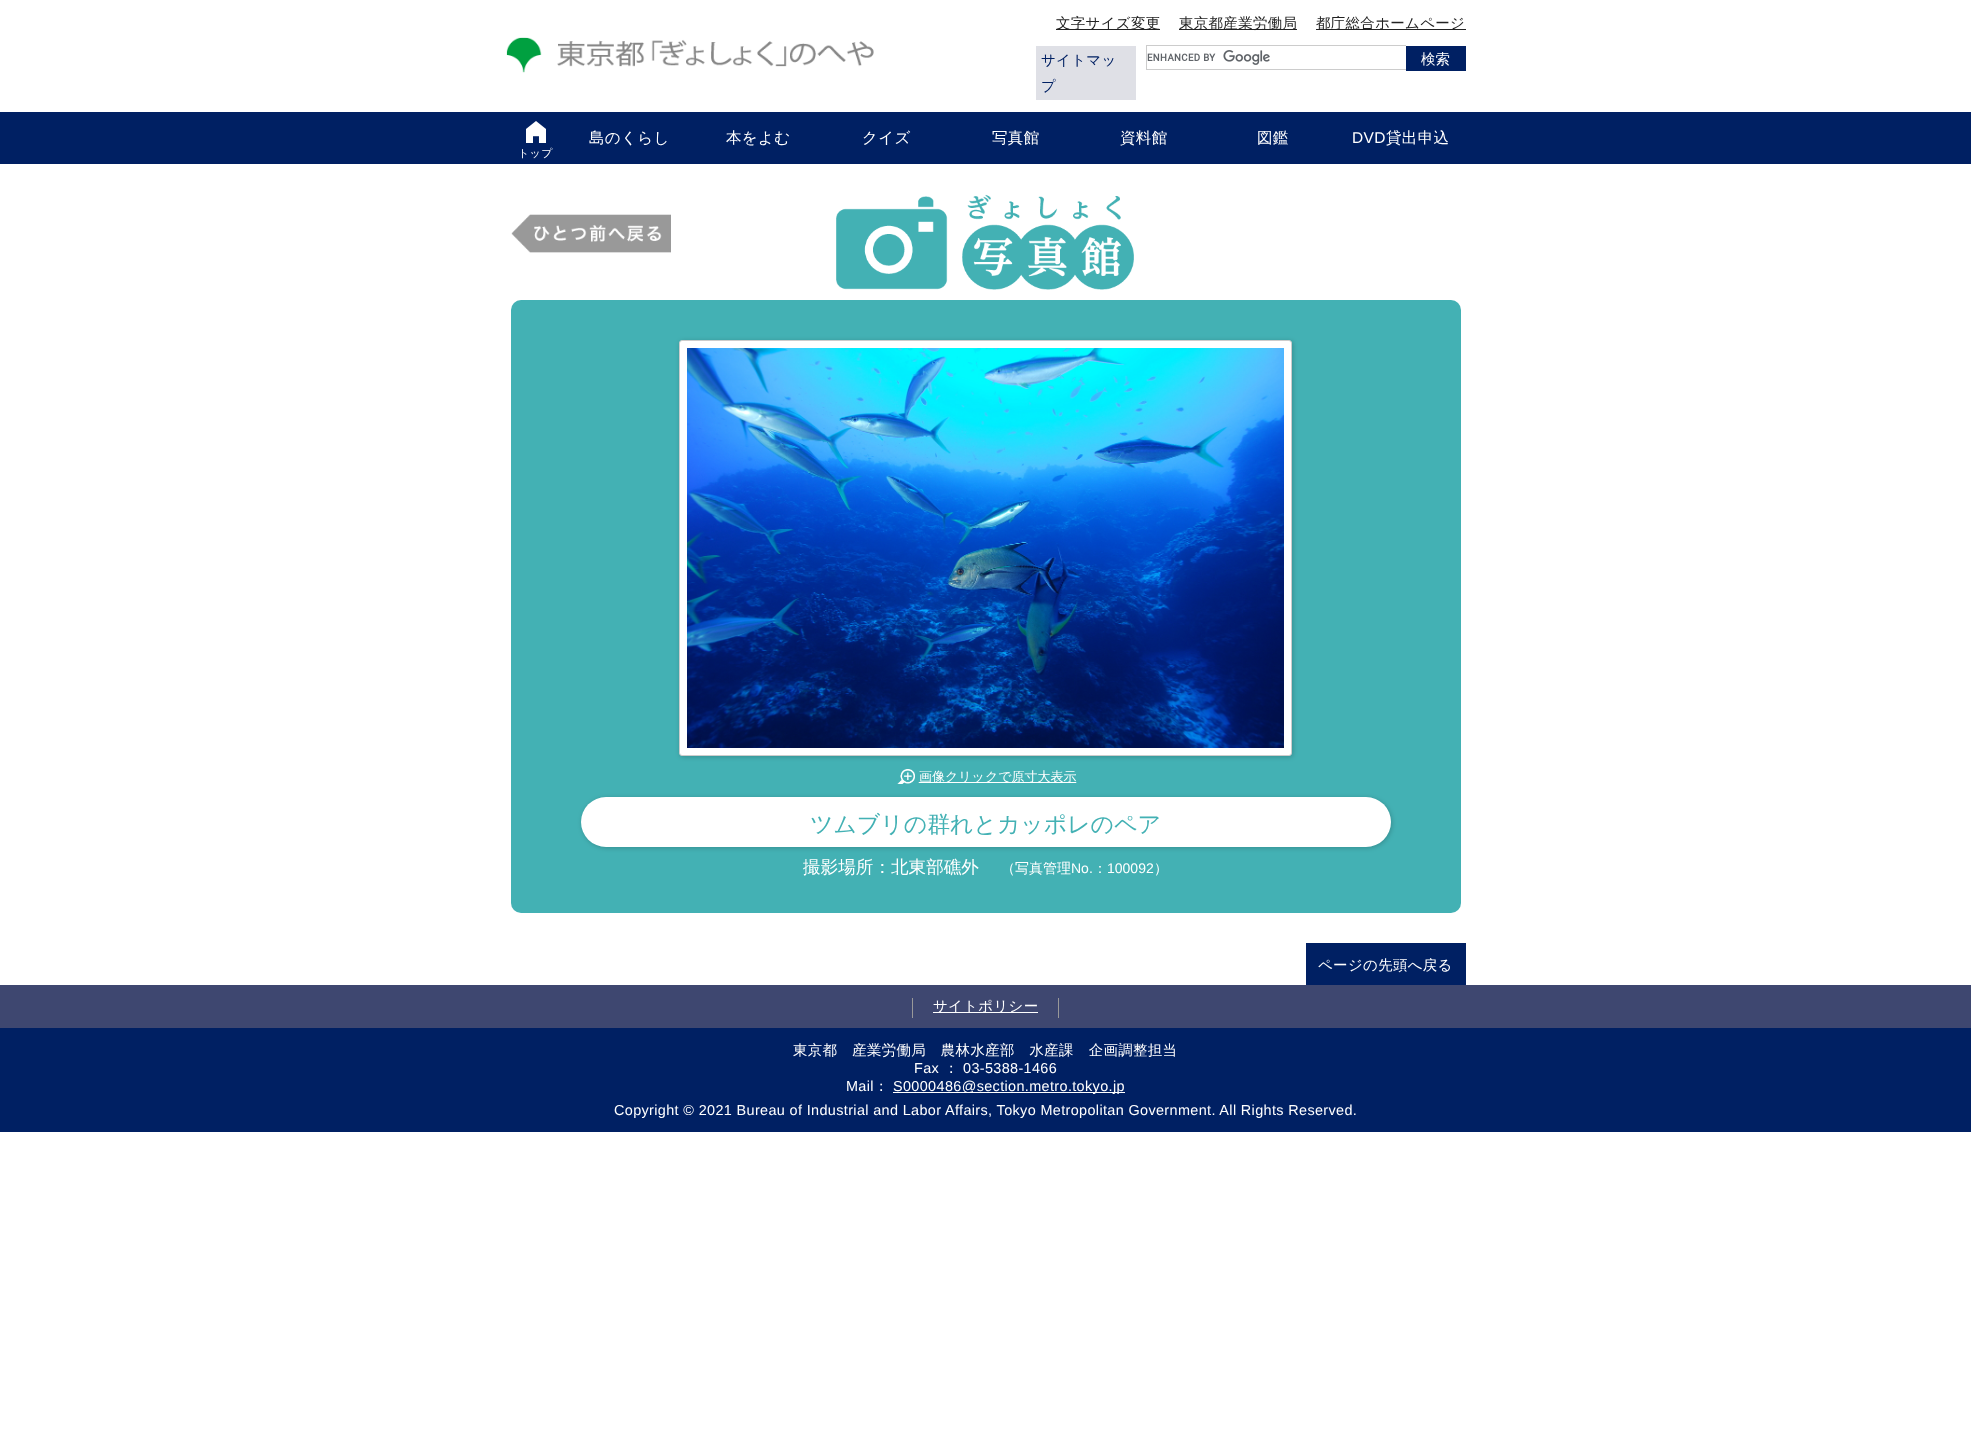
<?xml version="1.0" encoding="UTF-8"?>
<svg xmlns="http://www.w3.org/2000/svg" width="1971" height="1432">
    <defs>
        <filter id="blur1" x="-50%" y="-200%" width="200%" height="500%"><feGaussianBlur stdDeviation="2.5"/></filter>
    </defs>
    <rect width="100%" height="100%" fill="#FFFFFF"/>
    <image x="506" y="37" width="368" height="36" href="img_01.png"/>
    <rect x="1056" y="29" width="104" height="1" fill="#222222"/>
    <text x="1056" y="28" font-family="WenQuanYi Zen Hei" font-size="14.43" font-weight="500" letter-spacing="0.36" fill="#222222">文字サイズ変更</text>
    <rect x="1179" y="29" width="118" height="1" fill="#222222"/>
    <text x="1179" y="28" font-family="WenQuanYi Zen Hei" font-size="14.43" font-weight="500" letter-spacing="0.36" fill="#222222">東京都産業労働局</text>
    <rect x="1316" y="29" width="150" height="1" fill="#222222"/>
    <text x="1316" y="28" font-family="WenQuanYi Zen Hei" font-size="14.43" font-weight="500" letter-spacing="0.36" fill="#222222">都庁総合ホームページ</text>
    <rect x="1036" y="46" width="100" height="54" fill="#DFE0E6"/>
    <text font-family="WenQuanYi Zen Hei" font-size="14.43" font-weight="500" letter-spacing="0.36" fill="#002063">
        <tspan x="1041" y="65">サイトマッ</tspan>
        <tspan x="1041" y="91">プ</tspan>
    </text>
    <image x="1147" y="50" width="123" height="15" href="img_02.png"/>
    <rect x="1146" y="45" width="260" height="1" fill="#CCCCCC"/>
    <rect x="1146" y="69" width="260" height="1" fill="#CCCCCC"/>
    <rect x="1146" y="45" width="1" height="25" fill="#CCCCCC"/>
    <rect x="1406" y="46" width="60" height="25" fill="#002063"/>
    <text x="1421" y="64" font-family="WenQuanYi Zen Hei" font-size="14.43" font-weight="500" fill="#FFFFFF">検索</text>
    <rect x="0" y="112" width="1971" height="52" fill="#002063"/>
    <text x="589" y="143" font-family="WenQuanYi Zen Hei" font-size="15.5" font-weight="500" letter-spacing="0.36" fill="#FFFFFF">島のくらし</text>
    <text x="726" y="143" font-family="WenQuanYi Zen Hei" font-size="15.5" font-weight="500" letter-spacing="0.36" fill="#FFFFFF">本をよむ</text>
    <text x="862" y="143" font-family="WenQuanYi Zen Hei" font-size="15.5" font-weight="500" letter-spacing="0.36" fill="#FFFFFF">クイズ</text>
    <text x="992" y="143" font-family="WenQuanYi Zen Hei" font-size="15.5" font-weight="500" letter-spacing="0.36" fill="#FFFFFF">写真館</text>
    <text x="1120" y="143" font-family="WenQuanYi Zen Hei" font-size="15.5" font-weight="500" letter-spacing="0.36" fill="#FFFFFF">資料館</text>
    <text x="1257" y="143" font-family="WenQuanYi Zen Hei" font-size="15.5" font-weight="500" letter-spacing="0.36" fill="#FFFFFF">図鑑</text>
    <text x="1352" y="143" font-family="Liberation Sans" font-size="15.5" letter-spacing="0.36" fill="#FFFFFF">DVD</text>
    <text x="1386" y="143" font-family="WenQuanYi Zen Hei" font-size="15.5" font-weight="500" letter-spacing="0.36" fill="#FFFFFF">貸出申込</text>
    <image x="526" y="121" width="20" height="22" href="img_03.png"/>
    <text x="518" y="157" font-family="WenQuanYi Zen Hei" font-size="11" font-weight="500" letter-spacing="0.36" fill="#FFFFFF">トップ</text>
    <image x="511" y="214" width="160" height="39" href="img_04.png"/>
    <image x="836" y="194" width="298" height="96" href="img_05.png"/>
    <rect x="511" y="300" width="950" height="613" rx="10" fill="#43B1B4"/>
    <rect x="680" y="341" width="613" height="416" rx="3" fill="#141414" fill-opacity="0.2" filter="url(#blur1)"/>
    <rect x="679.5" y="340.5" width="612" height="415" rx="2.5" fill="#FFFFFF" stroke="#CCCCCC"/>
    <image x="687" y="348" width="597" height="400" href="img_06.png"/>
    <image x="897" y="769" width="180" height="15" href="img_07.png"/>
    <text x="919" y="781" font-family="WenQuanYi Zen Hei" font-size="13" font-weight="500" fill="#FFFFFF">画像クリックで原寸大表示</text>
    <rect x="582" y="798" width="810" height="50" rx="25" fill="#141414" fill-opacity="0.2" filter="url(#blur1)"/>
    <rect x="581" y="797" width="810" height="50" rx="25" fill="#FFFFFF"/>
    <text x="810" y="832" font-family="WenQuanYi Zen Hei" font-size="22.9" font-weight="500" fill="#43B1B4">ツムブリの群れとカッポレのペア</text>
    <text x="803" y="873" font-family="WenQuanYi Zen Hei" font-size="17.6" font-weight="500" fill="#FFFFFF">撮影場所：北東部礁外</text>
    <text x="1001" y="873" font-family="WenQuanYi Zen Hei" font-size="14" font-weight="500" fill="#FFFFFF">（写真管理</text>
    <text x="1071" y="873" font-family="Liberation Sans" font-size="14" fill="#FFFFFF">No.</text>
    <text x="1093" y="873" font-family="WenQuanYi Zen Hei" font-size="14" font-weight="500" fill="#FFFFFF">：</text>
    <text x="1107" y="873" font-family="Liberation Sans" font-size="14" fill="#FFFFFF">100092</text>
    <text x="1154" y="873" font-family="WenQuanYi Zen Hei" font-size="14" font-weight="500" fill="#FFFFFF">）</text>
    <rect x="1306" y="943" width="160" height="42" fill="#002063"/>
    <text x="1318" y="970" font-family="WenQuanYi Zen Hei" font-size="14.43" font-weight="500" letter-spacing="0.36" fill="#FFFFFF">ページの先頭へ戻る</text>
    <rect x="0" y="985" width="1971" height="43" fill="#3E4770"/>
    <rect x="912" y="998" width="1" height="20" fill="#999999"/>
    <rect x="933" y="1012" width="105" height="1" fill="#FFFFFF"/>
    <text x="933" y="1011" font-family="WenQuanYi Zen Hei" font-size="14.43" font-weight="500" letter-spacing="0.36" fill="#FFFFFF">サイトポリシー</text>
    <rect x="1058" y="998" width="1" height="20" fill="#999999"/>
    <rect x="0" y="1028" width="1971" height="104" fill="#002063"/>
    <text x="793" y="1055" font-family="WenQuanYi Zen Hei" font-size="14.43" font-weight="500" letter-spacing="0.36" fill="#FFFFFF">東京都　産業労働局　農林水産部　水産課　企画調整担当</text>
    <text x="914" y="1073" font-family="Liberation Sans" font-size="14.43" letter-spacing="0.36" fill="#FFFFFF">Fax</text>
    <text x="944" y="1073" font-family="WenQuanYi Zen Hei" font-size="14.43" font-weight="500" letter-spacing="0.36" fill="#FFFFFF">：</text>
    <text x="963" y="1073" font-family="Liberation Sans" font-size="14.43" letter-spacing="0.36" fill="#FFFFFF">03-5388-1466</text>
    <text x="846" y="1091" font-family="Liberation Sans" font-size="14.43" letter-spacing="0.36" fill="#FFFFFF">Mail</text>
    <text x="874" y="1091" font-family="WenQuanYi Zen Hei" font-size="14.43" font-weight="500" letter-spacing="0.36" fill="#FFFFFF">：</text>
    <rect x="893" y="1092" width="232" height="1" fill="#FFFFFF"/>
    <text x="893" y="1091" font-family="Liberation Sans" font-size="14.43" letter-spacing="0.36" fill="#FFFFFF">S0000486@section.metro.tokyo.jp</text>
    <text x="614" y="1115" font-family="Liberation Sans" font-size="14.43" letter-spacing="0.36" fill="#FFFFFF">Copyright © 2021 Bureau of Industrial and Labor Affairs, Tokyo Metropolitan Government. All Rights Reserved.</text>
</svg>
